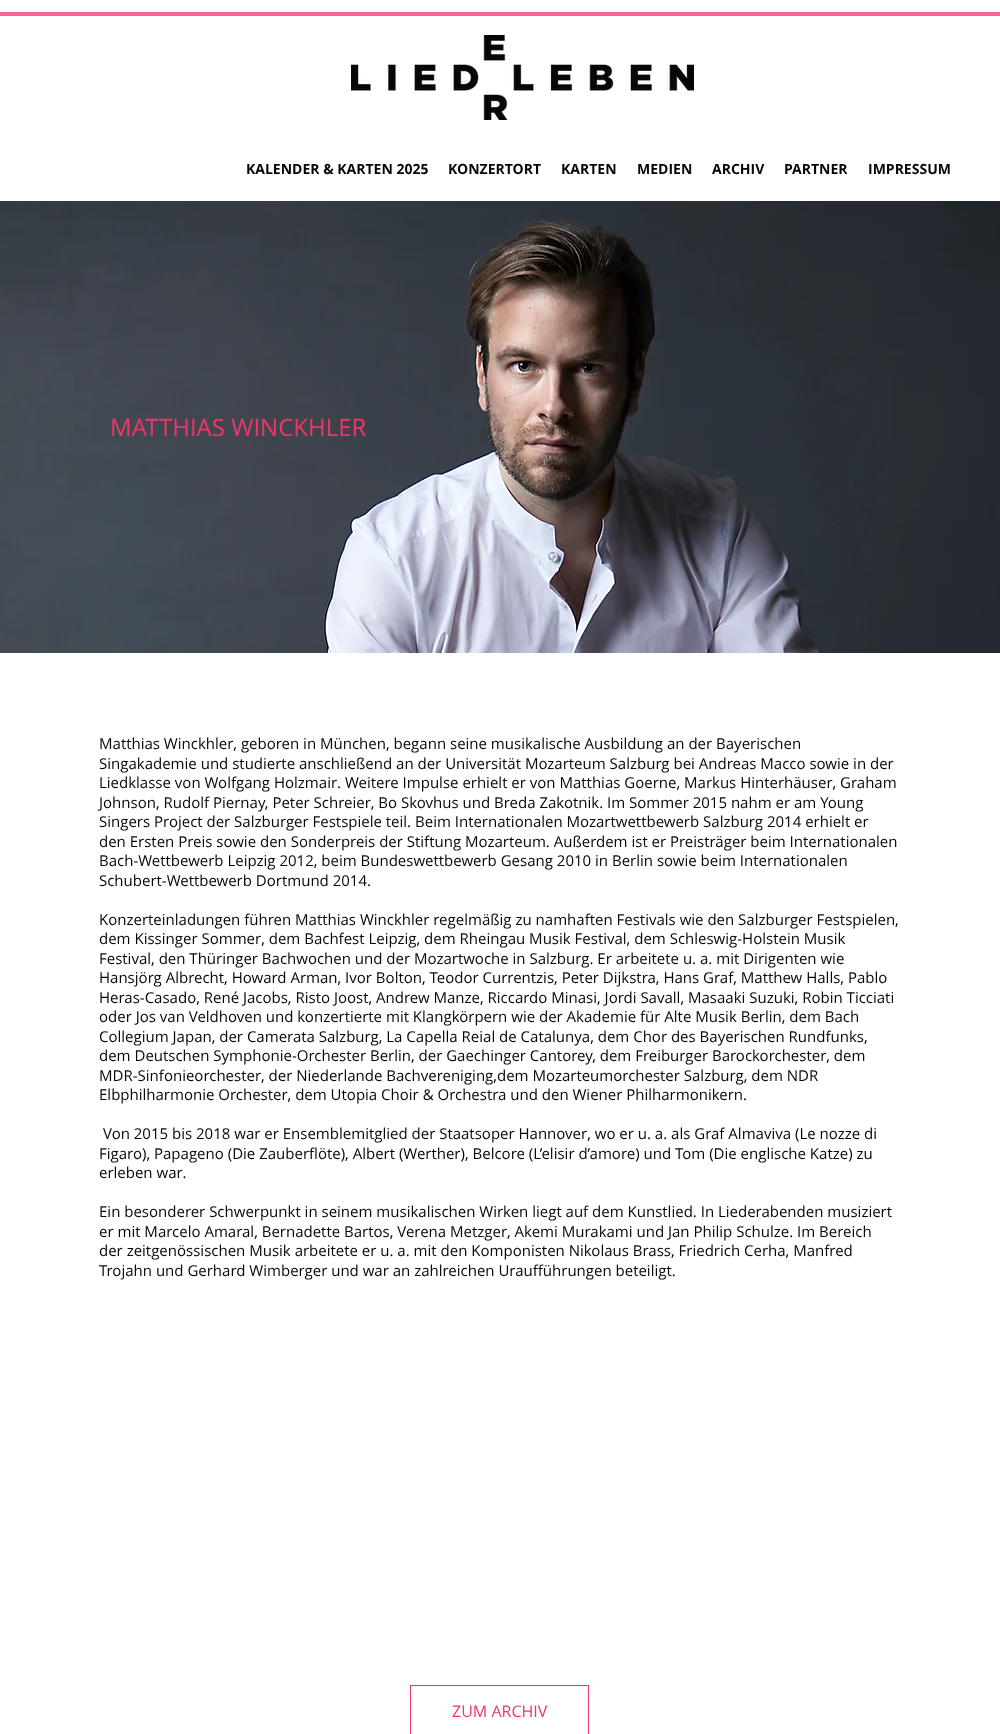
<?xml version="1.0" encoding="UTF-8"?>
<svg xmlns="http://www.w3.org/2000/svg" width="1000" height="1734">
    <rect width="100%" height="100%" fill="#FFFFFF"/>
    <rect x="0" y="12" width="1000" height="4" fill="#F2668F"/>
    <image x="351" y="35" width="343" height="85" href="img_01.png"/>
    <text x="246" y="174" font-family="Open Sans" font-size="14" font-weight="700" fill="#070606">KALENDER &amp; KARTEN 2025</text>
    <text x="448" y="174" font-family="Open Sans" font-size="14" font-weight="700" fill="#070606">KONZERTORT</text>
    <text x="561" y="174" font-family="Open Sans" font-size="14" font-weight="700" fill="#070606">KARTEN</text>
    <text x="637" y="174" font-family="Open Sans" font-size="14" font-weight="700" fill="#070606">MEDIEN</text>
    <text x="712" y="174" font-family="Open Sans" font-size="14" font-weight="700" fill="#070606">ARCHIV</text>
    <text x="784" y="174" font-family="Open Sans" font-size="14" font-weight="700" fill="#070606">PARTNER</text>
    <text x="868" y="174" font-family="Open Sans" font-size="14" font-weight="700" fill="#070606">IMPRESSUM</text>
    <image x="0" y="201" width="1000" height="452" href="img_02.png"/>
    <text x="110" y="436" font-family="Open Sans" font-size="24" fill="#F23568">MATTHIAS WINCKHLER</text>
    <text font-family="Open Sans" font-size="15" fill="#070606">
        <tspan x="99" y="749">Matthias Winckhler, geboren in München, begann seine musikalische Ausbildung an der Bayerischen</tspan>
        <tspan x="99" y="769">Singakademie und studierte anschließend an der Universität Mozarteum Salzburg bei Andreas Macco sowie in der</tspan>
        <tspan x="99" y="788">Liedklasse von Wolfgang Holzmair. Weitere Impulse erhielt er von Matthias Goerne, Markus Hinterhäuser, Graham</tspan>
        <tspan x="99" y="808">Johnson, Rudolf Piernay, Peter Schreier, Bo Skovhus und Breda Zakotnik. Im Sommer 2015 nahm er am Young</tspan>
        <tspan x="99" y="827">Singers Project der Salzburger Festspiele teil. Beim Internationalen Mozartwettbewerb Salzburg 2014 erhielt er</tspan>
        <tspan x="99" y="847">den Ersten Preis sowie den Sonderpreis der Stiftung Mozarteum. Außerdem ist er Preisträger beim Internationalen</tspan>
        <tspan x="99" y="866">Bach-Wettbewerb Leipzig 2012, beim Bundeswettbewerb Gesang 2010 in Berlin sowie beim Internationalen</tspan>
        <tspan x="99" y="886">Schubert-Wettbewerb Dortmund 2014.</tspan>
    </text>
    <text font-family="Open Sans" font-size="15" fill="#070606">
        <tspan x="99" y="925">Konzerteinladungen führen Matthias Winckhler regelmäßig zu namhaften Festivals wie den Salzburger Festspielen,</tspan>
        <tspan x="99" y="944">dem Kissinger Sommer, dem Bachfest Leipzig, dem Rheingau Musik Festival, dem Schleswig-Holstein Musik</tspan>
        <tspan x="99" y="964">Festival, den Thüringer Bachwochen und der Mozartwoche in Salzburg. Er arbeitete u. a. mit Dirigenten wie</tspan>
        <tspan x="99" y="983">Hansjörg Albrecht, Howard Arman, Ivor Bolton, Teodor Currentzis, Peter Dijkstra, Hans Graf, Matthew Halls, Pablo</tspan>
        <tspan x="99" y="1003">Heras-Casado, René Jacobs, Risto Joost, Andrew Manze, Riccardo Minasi, Jordi Savall, Masaaki Suzuki, Robin Ticciati</tspan>
        <tspan x="99" y="1022">oder Jos van Veldhoven und konzertierte mit Klangkörpern wie der Akademie für Alte Musik Berlin, dem Bach</tspan>
        <tspan x="99" y="1042">Collegium Japan, der Camerata Salzburg, La Capella Reial de Catalunya, dem Chor des Bayerischen Rundfunks,</tspan>
        <tspan x="99" y="1061">dem Deutschen Symphonie-Orchester Berlin, der Gaechinger Cantorey, dem Freiburger Barockorchester, dem</tspan>
        <tspan x="99" y="1081">MDR-Sinfonieorchester, der Niederlande Bachvereniging,dem Mozarteumorchester Salzburg, dem NDR</tspan>
        <tspan x="99" y="1100">Elbphilharmonie Orchester, dem Utopia Choir &amp; Orchestra und den Wiener Philharmonikern.</tspan>
    </text>
    <text x="103" y="1139" font-family="Open Sans" font-size="15" fill="#070606">Von 2015 bis 2018 war er Ensemblemitglied der Staatsoper Hannover, wo er u. a. als Graf Almaviva (Le nozze di</text>
    <text font-family="Open Sans" font-size="15" fill="#070606">
        <tspan x="99" y="1159">Figaro), Papageno (Die Zauberflöte), Albert (Werther), Belcore (L’elisir d’amore) und Tom (Die englische Katze) zu</tspan>
        <tspan x="99" y="1178">erleben war.</tspan>
    </text>
    <text font-family="Open Sans" font-size="15" fill="#070606">
        <tspan x="99" y="1217">Ein besonderer Schwerpunkt in seinem musikalischen Wirken liegt auf dem Kunstlied. In Liederabenden musiziert</tspan>
        <tspan x="99" y="1237">er mit Marcelo Amaral, Bernadette Bartos, Verena Metzger, Akemi Murakami und Jan Philip Schulze. Im Bereich</tspan>
        <tspan x="99" y="1256">der zeitgenössischen Musik arbeitete er u. a. mit den Komponisten Nikolaus Brass, Friedrich Cerha, Manfred</tspan>
        <tspan x="99" y="1276">Trojahn und Gerhard Wimberger und war an zahlreichen Uraufführungen beteiligt.</tspan>
    </text>
    <rect x="410.5" y="1685.5" width="178" height="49" fill="none" stroke="#F23568"/>
    <text x="452" y="1717" font-family="Open Sans" font-size="16" fill="#F23568">ZUM ARCHIV</text>
</svg>
